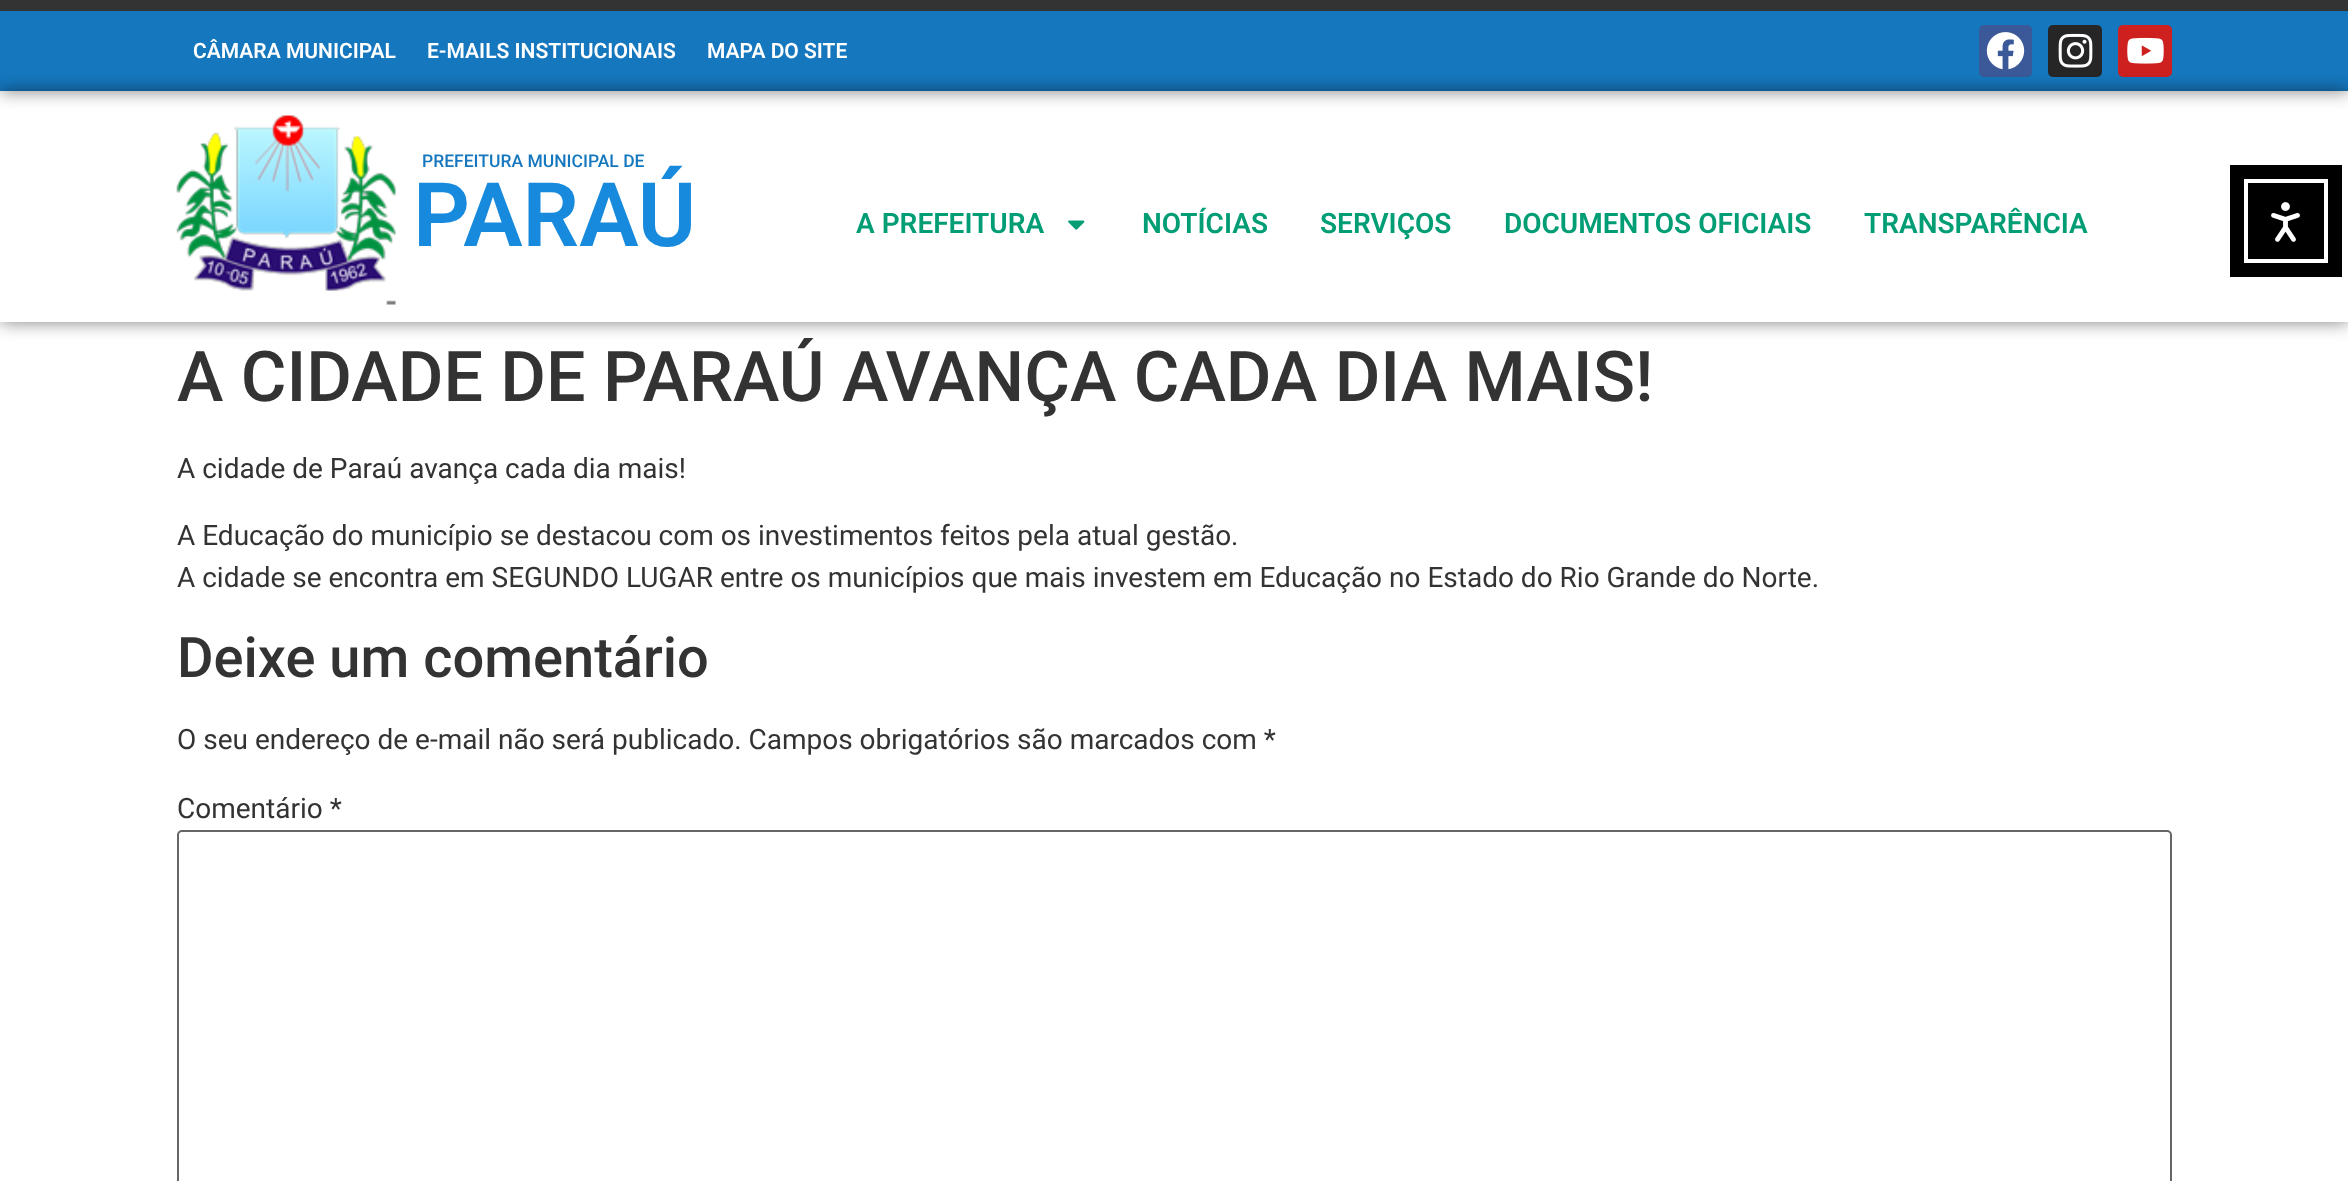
<?xml version="1.0" encoding="UTF-8"?>
<svg xmlns="http://www.w3.org/2000/svg" width="2348" height="1181">
    <defs>
        <filter id="blur1" x="-50%" y="-200%" width="200%" height="500%"><feGaussianBlur stdDeviation="9"/></filter>
        <clipPath id="clip1"><path d="M 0 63 H 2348 V 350 H 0 Z M 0 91 H 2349 V 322 H 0 Z" clip-rule="evenodd"/></clipPath>
    </defs>
    <rect width="100%" height="100%" fill="#FFFFFF"/>
    <rect x="0" y="0" width="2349" height="91" fill="#000000" fill-opacity="0.5" filter="url(#blur1)"/>
    <rect x="0" y="11" width="2348" height="80" fill="#1577BE"/>
    <rect x="0" y="0" width="2348" height="11" fill="#333333"/>
    <text x="193" y="58" font-family="Roboto" font-size="21" font-weight="600" fill="#FFFFFF">CÂMARA MUNICIPAL</text>
    <text x="427" y="58" font-family="Roboto" font-size="21" font-weight="600" fill="#FFFFFF">E-MAILS INSTITUCIONAIS</text>
    <text x="707" y="58" font-family="Roboto" font-size="21" font-weight="600" fill="#FFFFFF">MAPA DO SITE</text>
    <rect x="1979" y="25" width="53" height="52" rx="5" fill="#3B5998"/>
    <image x="1986" y="32" width="39" height="38" href="img_01.png"/>
    <rect x="2048" y="25" width="54" height="52" rx="5" fill="#262626"/>
    <image x="2058" y="33" width="35" height="35" href="img_02.png"/>
    <rect x="2118" y="25" width="54" height="52" rx="5" fill="#CD201F"/>
    <image x="2127" y="37" width="37" height="27" href="img_03.png"/>
    <g clip-path="url(#clip1)">
        <rect x="0" y="91" width="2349" height="231" fill="#000000" fill-opacity="0.5" filter="url(#blur1)"/>
    </g>
    <image x="176" y="114" width="220" height="191" href="img_04.png"/>
    <text x="422" y="167" font-family="Roboto" font-size="17.5" font-weight="500" fill="#1577BE">PREFEITURA MUNICIPAL DE</text>
    <text x="413" y="246" font-family="Roboto" font-size="89" font-weight="600" fill="#188ADE">PARAÚ</text>
    <text x="856" y="233" font-family="Roboto" font-size="28" font-weight="600" fill="#019D75">A PREFEITURA</text>
    <image x="1068" y="220" width="17" height="10" href="img_05.png"/>
    <text x="1142" y="233" font-family="Roboto" font-size="28" font-weight="600" fill="#019D75">NOTÍCIAS</text>
    <text x="1320" y="233" font-family="Roboto" font-size="28" font-weight="600" fill="#019D75">SERVIÇOS</text>
    <text x="1504" y="233" font-family="Roboto" font-size="28" font-weight="600" fill="#019D75">DOCUMENTOS OFICIAIS</text>
    <text x="1864" y="233" font-family="Roboto" font-size="28" font-weight="600" fill="#019D75">TRANSPARÊNCIA</text>
    <rect x="2230" y="165" width="112" height="112" fill="#000000"/>
    <rect x="2246" y="181" width="80" height="80" fill="none" stroke="#FFFFFF" stroke-width="4"/>
    <image x="2271" y="202" width="29" height="40" href="img_06.png"/>
    <text x="177" y="401" font-family="Roboto" font-size="70" font-weight="500" fill="#333333">A CIDADE DE PARAÚ AVANÇA CADA DIA MAIS!</text>
    <text x="177" y="478" font-family="Roboto" font-size="28" fill="#333333">A cidade de Paraú avança cada dia mais!</text>
    <text font-family="Roboto" font-size="28" fill="#333333">
        <tspan x="177" y="545">A Educação do município se destacou com os investimentos feitos pela atual gestão.</tspan>
        <tspan x="177" y="587">A cidade se encontra em SEGUNDO LUGAR entre os municípios que mais investem em Educação no Estado do Rio Grande do Norte.</tspan>
    </text>
    <text x="177" y="677" font-family="Roboto" font-size="56" font-weight="500" fill="#333333">Deixe um comentário</text>
    <text x="177" y="749" font-family="Roboto" font-size="28" fill="#333333">O seu endereço de e-mail não será publicado. Campos obrigatórios são marcados com *</text>
    <text x="177" y="818" font-family="Roboto" font-size="28" fill="#333333">Comentário *</text>
    <rect x="178" y="831" width="1993" height="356" rx="4" fill="none" stroke="#666666" stroke-width="2"/>
</svg>
